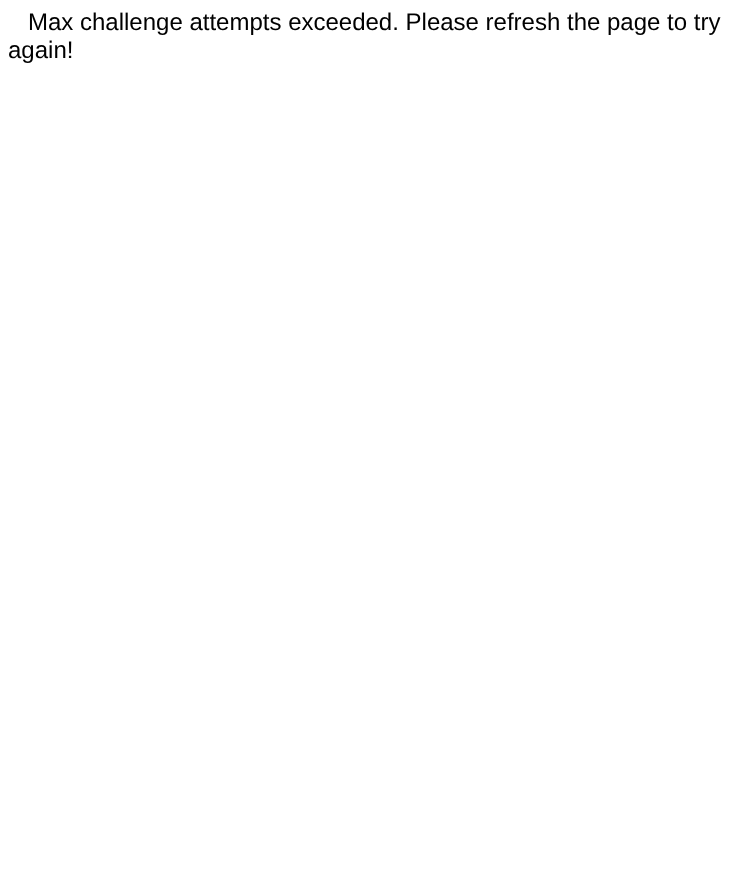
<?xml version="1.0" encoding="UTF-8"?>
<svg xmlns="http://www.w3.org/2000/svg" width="745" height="887">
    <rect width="100%" height="100%" fill="#FFFFFF"/>
    <text x="28" y="30" font-family="Liberation Sans" font-size="24" fill="#000000">Max challenge attempts exceeded. Please refresh the page to try</text>
    <text x="8" y="58" font-family="Liberation Sans" font-size="24" fill="#000000">again!</text>
</svg>
